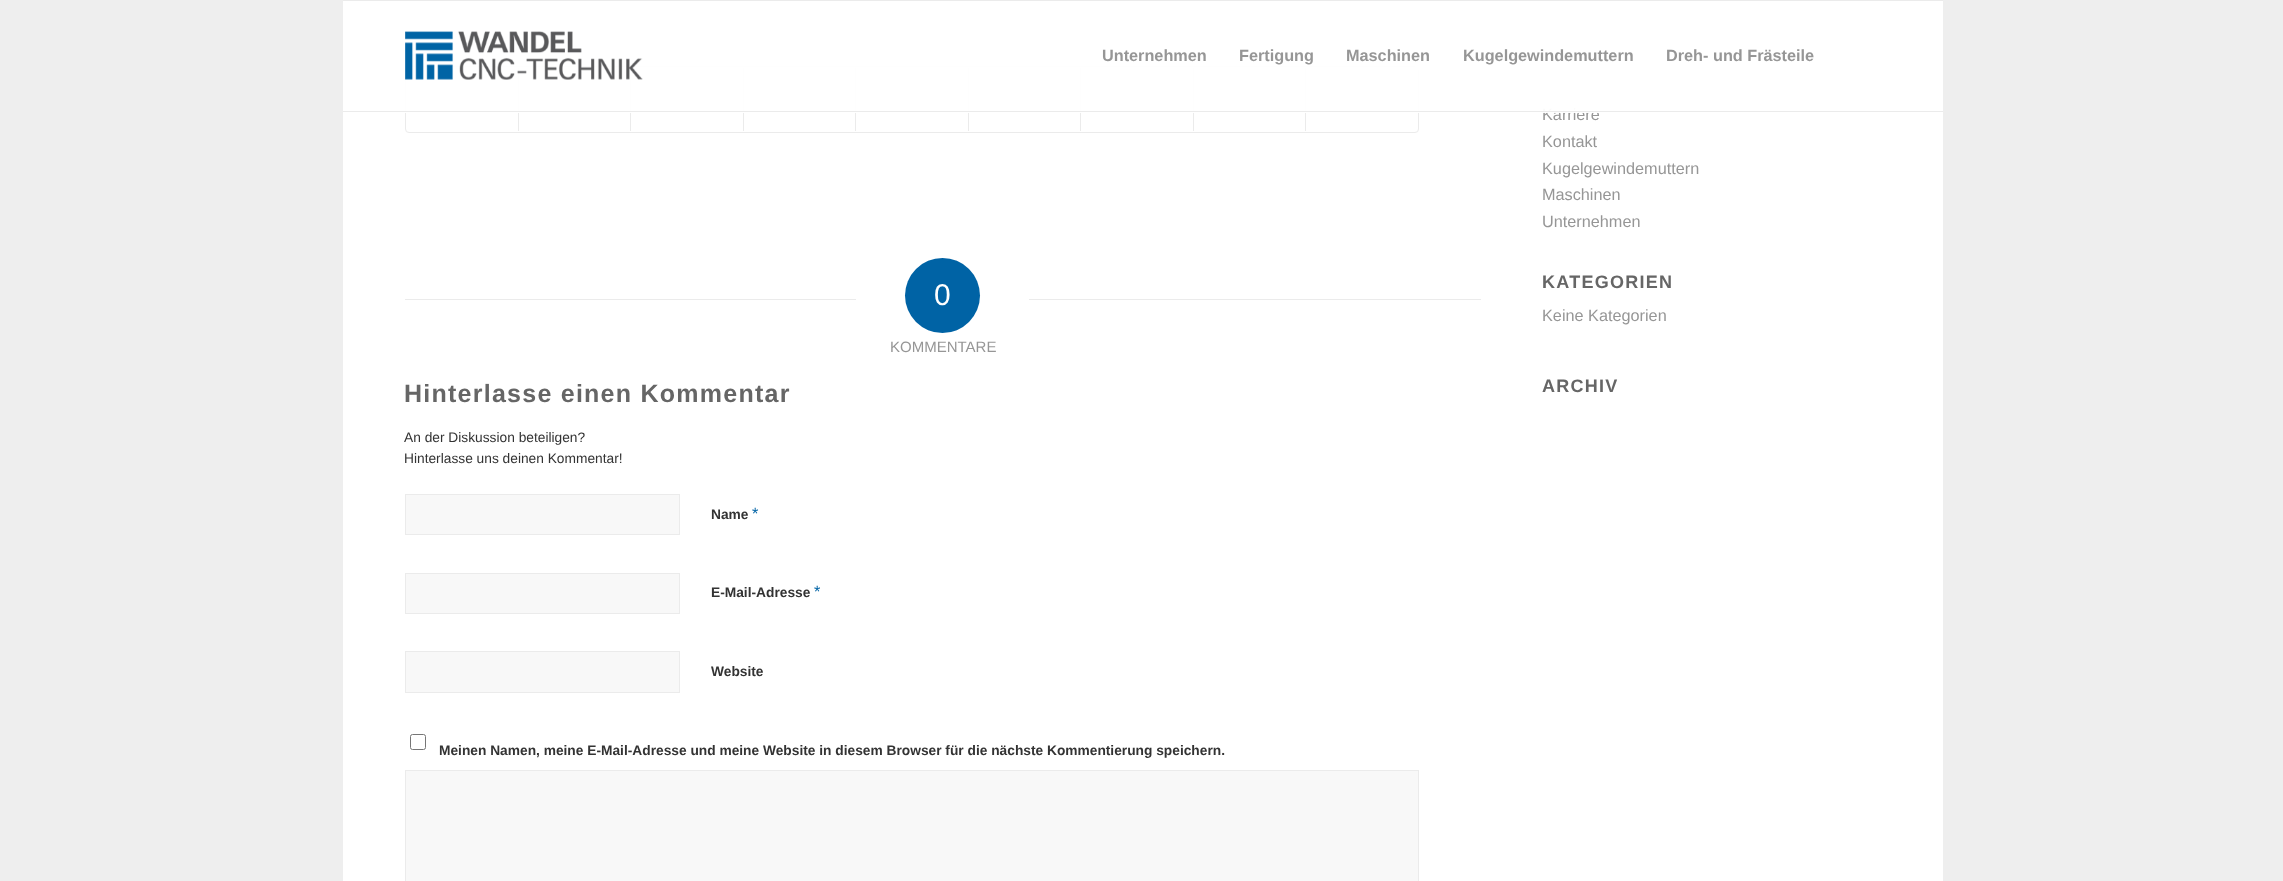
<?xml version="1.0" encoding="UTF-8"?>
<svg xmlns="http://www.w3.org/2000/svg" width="2283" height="881">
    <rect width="100%" height="100%" fill="#EEEEEE"/>
    <rect x="343" y="0" width="1600" height="1" fill="#EBEBEB"/>
    <rect x="343" y="1" width="1600" height="880" fill="#FFFFFF"/>
    <text x="1542" y="120" font-family="Liberation Sans" font-size="16.25" fill="#969696">Karriere</text>
    <rect x="405.5" y="66.5" width="1013" height="66" rx="3.5" fill="none" stroke="#EBEBEB"/>
    <rect x="518" y="68" width="1" height="63" fill="#EBEBEB"/>
    <rect x="630" y="68" width="1" height="63" fill="#EBEBEB"/>
    <rect x="743" y="68" width="1" height="63" fill="#EBEBEB"/>
    <rect x="855" y="68" width="1" height="63" fill="#EBEBEB"/>
    <rect x="968" y="68" width="1" height="63" fill="#EBEBEB"/>
    <rect x="1080" y="68" width="1" height="63" fill="#EBEBEB"/>
    <rect x="1193" y="68" width="1" height="63" fill="#EBEBEB"/>
    <rect x="1305" y="68" width="1" height="63" fill="#EBEBEB"/>
    <rect x="405" y="66" width="1194" height="47" fill="#FFFFFF" fill-opacity="0.95"/>
    <rect x="343" y="111" width="1600" height="1" fill="#EBEBEB"/>
    <image x="405" y="31" width="238" height="49" href="img_01.png"/>
    <text x="1102" y="61" font-family="Liberation Sans" font-size="16.25" font-weight="700" fill="#969696">Unternehmen</text>
    <text x="1239" y="61" font-family="Liberation Sans" font-size="16.25" font-weight="700" fill="#969696">Fertigung</text>
    <text x="1346" y="61" font-family="Liberation Sans" font-size="16.25" font-weight="700" fill="#969696">Maschinen</text>
    <text x="1463" y="61" font-family="Liberation Sans" font-size="16.25" font-weight="700" fill="#969696">Kugelgewindemuttern</text>
    <text x="1666" y="61" font-family="Liberation Sans" font-size="16.25" font-weight="700" fill="#969696">Dreh- und Frästeile</text>
    <text font-family="Liberation Sans" font-size="16.25" fill="#969696">
        <tspan x="1542" y="147">Kontakt</tspan>
        <tspan x="1542" y="174">Kugelgewindemuttern</tspan>
        <tspan x="1542" y="200">Maschinen</tspan>
        <tspan x="1542" y="227">Unternehmen</tspan>
    </text>
    <text x="1542" y="288" font-family="Liberation Sans" font-size="18" font-weight="700" letter-spacing="1.25" fill="#666666">KATEGORIEN</text>
    <text x="1542" y="321" font-family="Liberation Sans" font-size="16.25" fill="#969696">Keine Kategorien</text>
    <text x="1542" y="392" font-family="Liberation Sans" font-size="18" font-weight="700" letter-spacing="1.25" fill="#666666">ARCHIV</text>
    <rect x="405" y="299" width="451" height="1" fill="#EBEBEB"/>
    <circle cx="942.5" cy="295.5" r="37.5" fill="#0063A5"/>
    <text x="934" y="305" font-family="Liberation Sans" font-size="30" fill="#FFFFFF">0</text>
    <rect x="1029" y="299" width="452" height="1" fill="#EBEBEB"/>
    <text x="890" y="352" font-family="Liberation Sans" font-size="15" fill="#969696">KOMMENTARE</text>
    <text x="404" y="402" font-family="Liberation Sans" font-size="25" font-weight="700" letter-spacing="1.25" fill="#666666">Hinterlasse einen Kommentar</text>
    <text font-family="Liberation Sans" font-size="13.75" fill="#333333">
        <tspan x="404" y="442">An der Diskussion beteiligen?</tspan>
        <tspan x="404" y="463">Hinterlasse uns deinen Kommentar!</tspan>
    </text>
    <rect x="405.5" y="494.5" width="274" height="40" fill="#F8F8F8" stroke="#EBEBEB"/>
    <text x="711" y="519" font-family="Liberation Sans" font-size="13.75" font-weight="700" fill="#333333">Name</text>
    <text x="752" y="519" font-family="Liberation Sans" font-size="16.25" fill="#0063A5">*</text>
    <rect x="405.5" y="573.5" width="274" height="40" fill="#F8F8F8" stroke="#EBEBEB"/>
    <text x="711" y="597" font-family="Liberation Sans" font-size="13.75" font-weight="700" fill="#333333">E-Mail-Adresse</text>
    <text x="814" y="597" font-family="Liberation Sans" font-size="16.25" fill="#0063A5">*</text>
    <rect x="405.5" y="651.5" width="274" height="41" fill="#F8F8F8" stroke="#EBEBEB"/>
    <text x="711" y="676" font-family="Liberation Sans" font-size="13.75" font-weight="700" fill="#333333">Website</text>
    <rect x="410.5" y="734.5" width="15" height="15" rx="2" fill="none" stroke="#767676"/>
    <text x="439" y="755" font-family="Liberation Sans" font-size="13.75" font-weight="700" fill="#333333">Meinen Namen, meine E-Mail-Adresse und meine Website in diesem Browser für die nächste Kommentierung speichern.</text>
    <rect x="405.5" y="770.5" width="1013" height="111" fill="#F8F8F8" stroke="#EBEBEB"/>
</svg>
